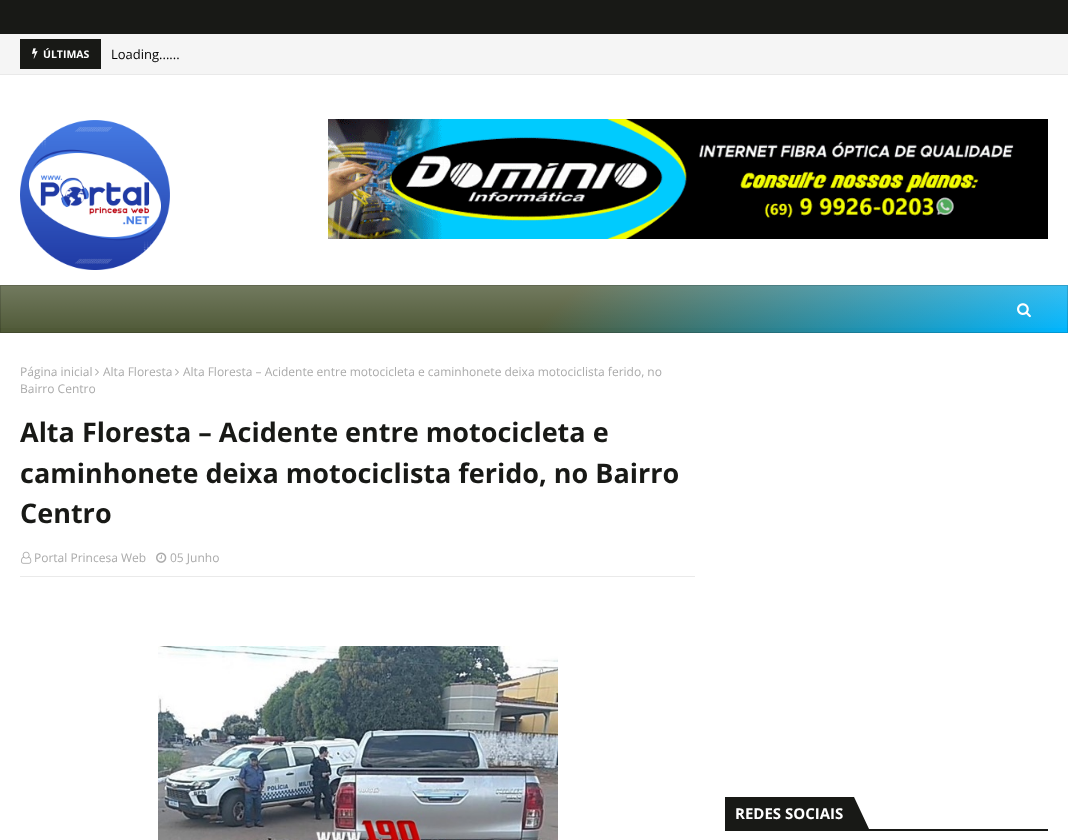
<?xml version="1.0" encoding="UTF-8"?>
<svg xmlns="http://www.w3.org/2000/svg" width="1068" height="840">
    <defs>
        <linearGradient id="g1" gradientUnits="userSpaceOnUse" x1="255" y1="30" x2="813" y2="588"><stop offset="0.52" stop-color="#4F5937"/><stop offset="1" stop-color="#00B6FF"/></linearGradient>
        <linearGradient id="g2" gradientUnits="userSpaceOnUse" x1="534" y1="285" x2="534" y2="333"><stop offset="0" stop-color="#FFFFFF" stop-opacity="0.2"/><stop offset="1" stop-color="#FFFFFF" stop-opacity="0"/></linearGradient>
    </defs>
    <rect width="100%" height="100%" fill="#FFFFFF"/>
    <rect x="0" y="0" width="1068" height="34" fill="#181916"/>
    <rect x="0" y="34" width="1068" height="40" fill="#F5F5F5"/>
    <rect x="0" y="74" width="1068" height="1" fill="#E9E9E9"/>
    <rect x="20" y="39" width="81" height="30" fill="#181916"/>
    <image x="32" y="48" width="6" height="11" href="img_01.png"/>
    <text x="43" y="58" font-family="Open Sans" font-size="10.5" font-weight="700" fill="#FFFFFF">ÚLTIMAS</text>
    <text x="111" y="59" font-family="Open Sans" font-size="13" fill="#000000">Loading......</text>
    <image x="20" y="120" width="150" height="150" href="img_02.png"/>
    <image x="328" y="119" width="720" height="120" href="img_03.png"/>
    <rect x="0" y="285" width="1068" height="48" fill="url(#g1)"/>
    <rect x="0" y="285" width="1068" height="43" fill="url(#g2)"/>
    <rect x="0.5" y="285.5" width="1067" height="47" fill="none" stroke="#000000" stroke-opacity="0.15"/>
    <image x="1017" y="303" width="14" height="15" href="img_04.png"/>
    <text x="20" y="376" font-family="Open Sans" font-size="12" fill="#AAAAAA">Página inicial</text>
    <image x="95" y="368" width="4" height="8" href="img_05.png"/>
    <text x="103" y="376" font-family="Open Sans" font-size="12" fill="#AAAAAA">Alta Floresta</text>
    <image x="175" y="368" width="4" height="8" href="img_05.png"/>
    <text x="183" y="376" font-family="Open Sans" font-size="12" fill="#AAAAAA">Alta Floresta – Acidente entre motocicleta e caminhonete deixa motociclista ferido, no</text>
    <text x="20" y="393" font-family="Open Sans" font-size="12" fill="#AAAAAA">Bairro Centro</text>
    <text font-family="Open Sans" font-size="27" font-weight="700" fill="#181916">
        <tspan x="20" y="442">Alta Floresta – Acidente entre motocicleta e</tspan>
        <tspan x="20" y="483">caminhonete deixa motociclista ferido, no Bairro</tspan>
        <tspan x="20" y="523">Centro</tspan>
    </text>
    <rect x="20" y="576" width="675" height="1" fill="#EAEAEA"/>
    <image x="21" y="551" width="11" height="13" href="img_06.png"/>
    <text x="34" y="562" font-family="Open Sans" font-size="12" fill="#AAAAAA">Portal Princesa Web</text>
    <image x="156" y="552" width="11" height="11" href="img_07.png"/>
    <text x="170" y="562" font-family="Open Sans" font-size="12" fill="#AAAAAA">05 Junho</text>
    <image x="158" y="646" width="400" height="194" href="img_08.png"/>
    <rect x="725" y="829" width="323" height="2" fill="#181916"/>
    <rect x="725" y="797" width="129" height="32" fill="#181916"/>
    <text x="735" y="819" font-family="Open Sans" font-size="15" font-weight="700" fill="#FFFFFF">REDES SOCIAIS</text>
    <path d="M 854 829 V 797 L 869 829 Z" fill="#181916"/>
</svg>
